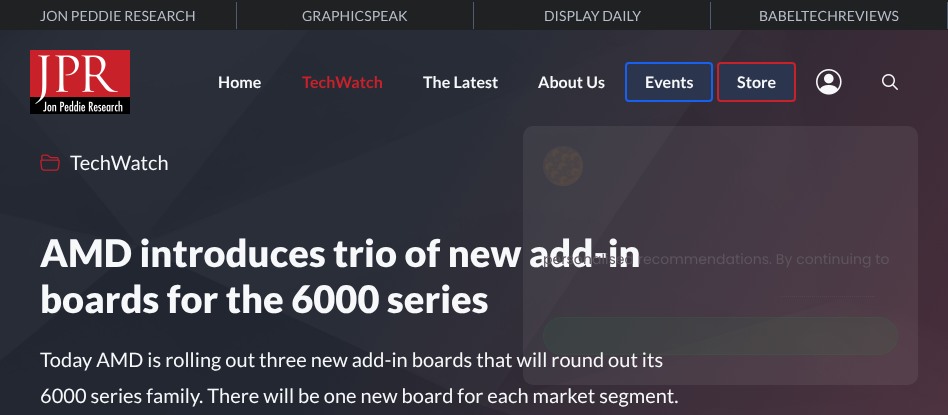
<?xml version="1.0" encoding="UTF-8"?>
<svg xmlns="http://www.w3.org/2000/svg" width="948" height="415">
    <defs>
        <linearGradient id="g1" gradientUnits="userSpaceOnUse" x1="-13" y1="22" x2="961" y2="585"><stop offset="0.4" stop-color="#161B27"/><stop offset="1" stop-color="#462331"/></linearGradient>
    </defs>
    <rect width="100%" height="100%" fill="#FFFFFF"/>
    <rect x="0" y="0" width="948" height="30" fill="#202123"/>
    <rect x="236" y="2" width="1" height="27" fill="#515C74"/>
    <text x="40" y="21" font-family="Lato" font-size="14" letter-spacing="0.05" fill="#B7BDC9">JON PEDDIE RESEARCH</text>
    <rect x="473" y="2" width="1" height="27" fill="#515C74"/>
    <text x="302" y="21" font-family="Lato" font-size="14" letter-spacing="0.05" fill="#B7BDC9">GRAPHICSPEAK</text>
    <rect x="710" y="2" width="1" height="27" fill="#515C74"/>
    <text x="544" y="21" font-family="Lato" font-size="14" letter-spacing="0.05" fill="#B7BDC9">DISPLAY DAILY</text>
    <rect x="947" y="2" width="1" height="27" fill="#515C74"/>
    <text x="759" y="21" font-family="Lato" font-size="14" letter-spacing="0.05" fill="#B7BDC9">BABELTECHREVIEWS</text>
    <rect x="0" y="30" width="948" height="385" fill="url(#g1)"/>
    <image x="0" y="30" width="948" height="385" href="img_04.png"/>
    <image x="30" y="50" width="100" height="64" href="img_01.png"/>
    <text x="218" y="88" font-family="Lato" font-size="16" font-weight="700" letter-spacing="0.05" fill="#F7F8F9">Home</text>
    <text x="302" y="88" font-family="Lato" font-size="16" font-weight="700" letter-spacing="0.05" fill="#C8212A">TechWatch</text>
    <text x="423" y="88" font-family="Lato" font-size="16" font-weight="700" letter-spacing="0.05" fill="#F7F8F9">The Latest</text>
    <text x="538" y="88" font-family="Lato" font-size="16" font-weight="700" letter-spacing="0.05" fill="#F7F8F9">About Us</text>
    <rect x="626" y="63" width="86" height="38" rx="3" fill="#2B364E" stroke="#1860F0" stroke-width="2"/>
    <text x="645" y="88" font-family="Lato" font-size="16" font-weight="700" letter-spacing="0.05" fill="#F7F8F9">Events</text>
    <rect x="718" y="63" width="77" height="38" rx="3" fill="#2B364E" stroke="#C8212A" stroke-width="2"/>
    <text x="737" y="88" font-family="Lato" font-size="16" font-weight="700" letter-spacing="0.05" fill="#F7F8F9">Store</text>
    <image x="816" y="69" width="26" height="26" href="img_02.png"/>
    <image x="882" y="74" width="16" height="16" href="img_03.png"/>
    <image x="40" y="154" width="20" height="17" href="img_05.png"/>
    <text x="70" y="170" font-family="Lato" font-size="20" letter-spacing="0.05" fill="#F7F8F9">TechWatch</text>
    <text font-family="Lato" font-size="38" font-weight="900" letter-spacing="0.05" fill="#F7F8F9">
        <tspan x="40" y="267">AMD introduces trio of new add-in</tspan>
        <tspan x="40" y="313">boards for the 6000 series</tspan>
    </text>
    <text font-family="Lato" font-size="20" letter-spacing="0.05" fill="#F7F8F9">
        <tspan x="40" y="367">Today AMD is rolling out three new add-in boards that will round out its</tspan>
        <tspan x="40" y="403">6000 series family. There will be one new board for each market segment.</tspan>
    </text>
    <rect x="523" y="126" width="395" height="259" rx="10" fill="#FFFFFF" fill-opacity="0.07"/>
    <image x="543" y="146" width="40" height="40" href="img_06.png"/>
    <text x="543" y="264" font-family="Poppins" font-size="14" letter-spacing="0.05" fill="#5E555F">personalised recommendations. By continuing to</text>
    <path d="M 780 296.5 H 875" fill="none" stroke="#FFFFFF" stroke-opacity="0.05" stroke-dasharray="1 1"/>
    <rect x="543" y="317" width="355" height="38" rx="19" fill="#20BF48" fill-opacity="0.07"/>
    <rect x="543.5" y="317.5" width="354" height="37" rx="18.5" fill="none" stroke="#20BF48" stroke-opacity="0.07"/>
</svg>
